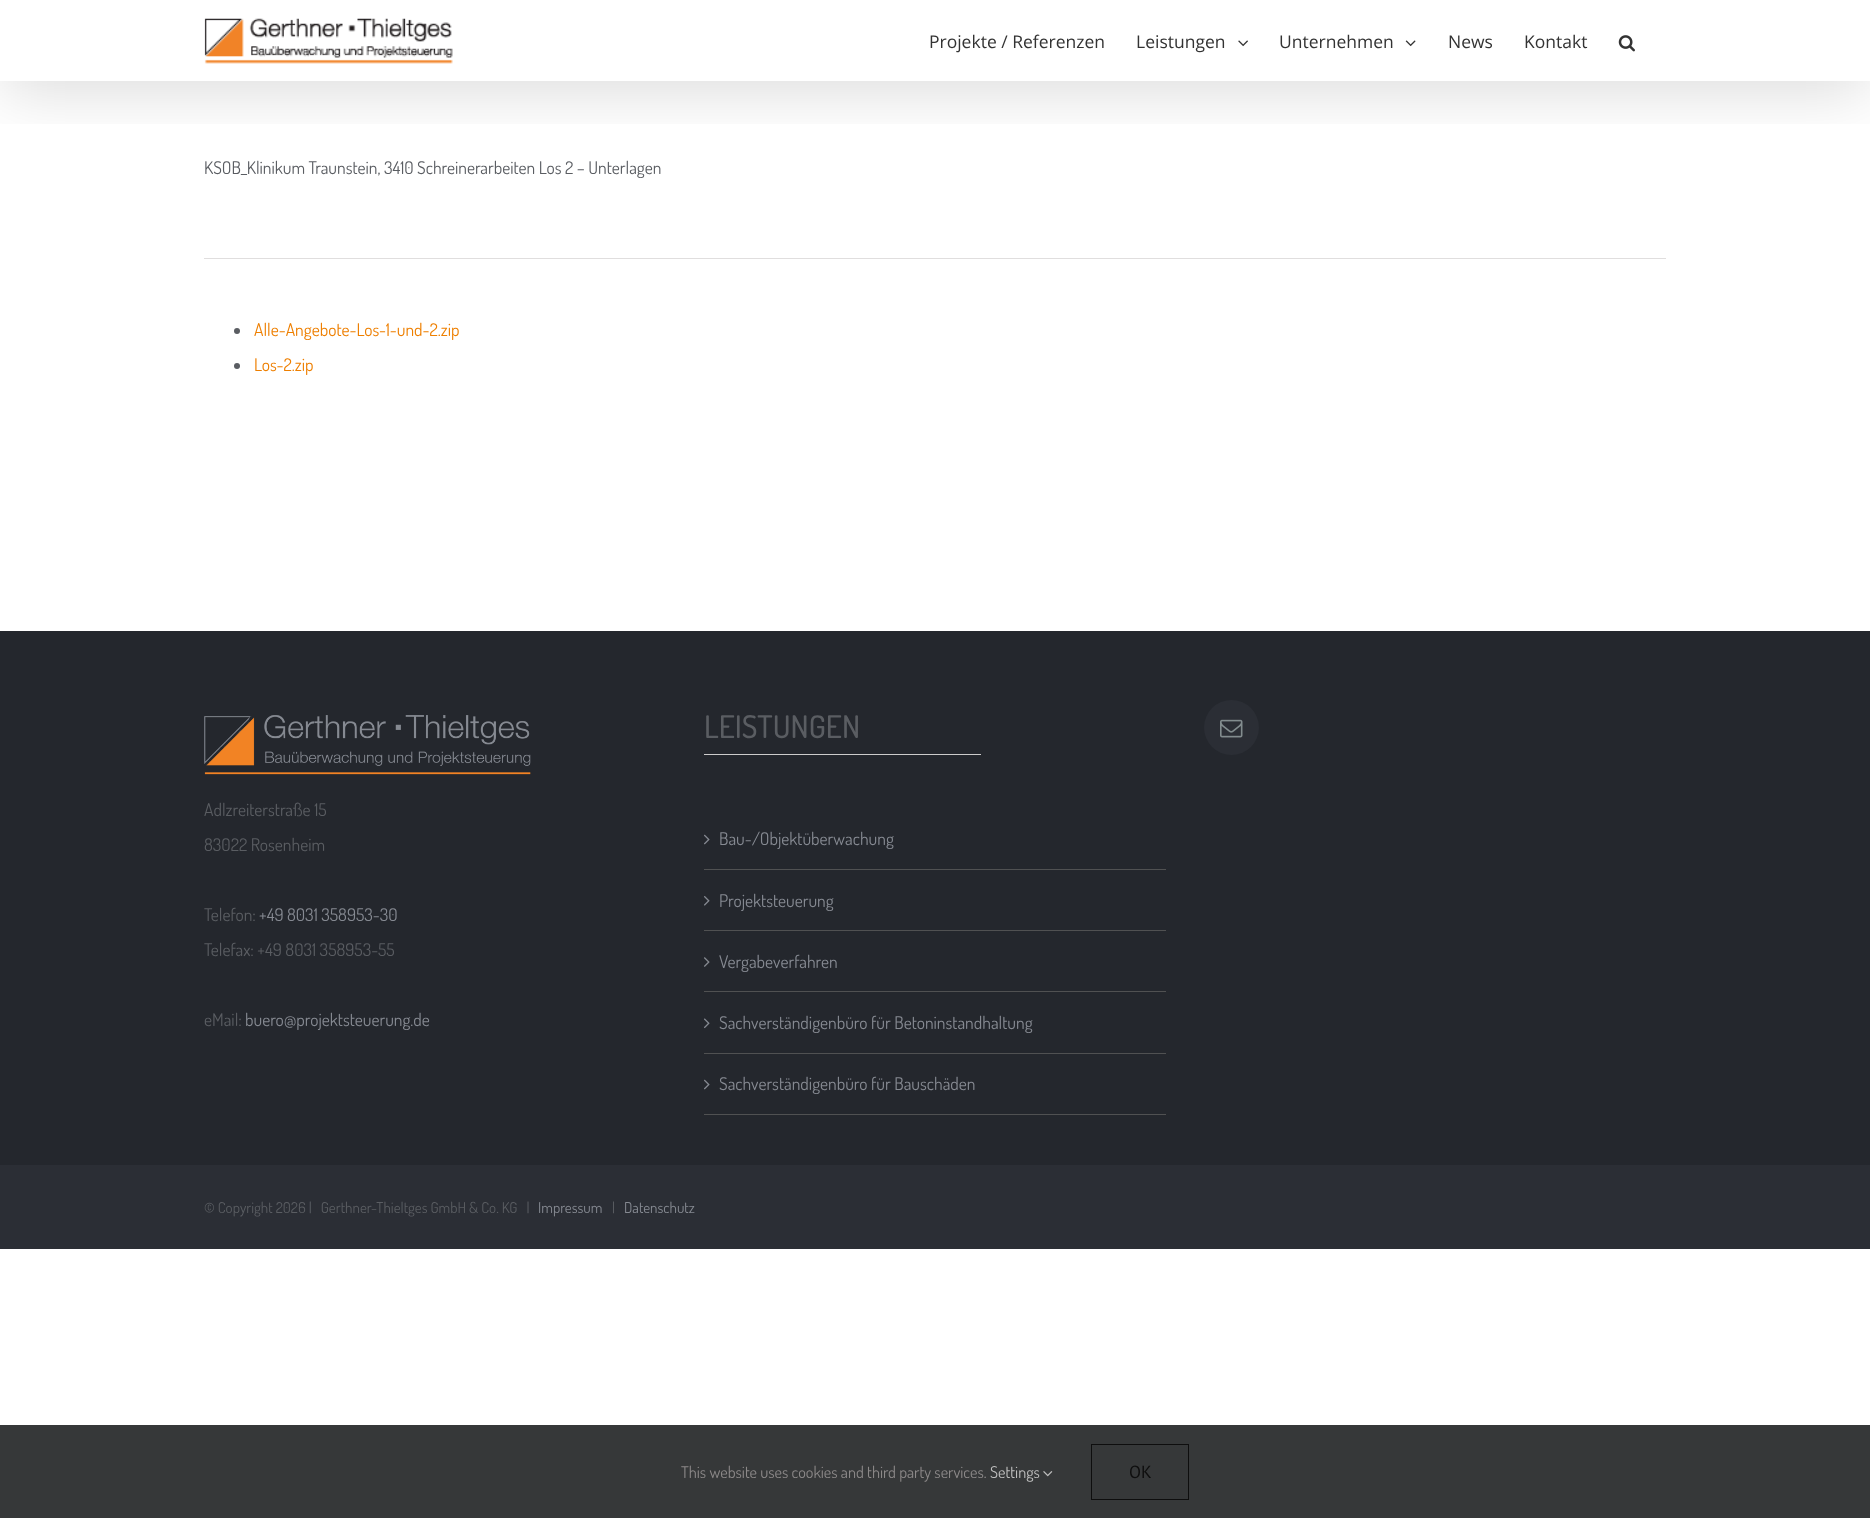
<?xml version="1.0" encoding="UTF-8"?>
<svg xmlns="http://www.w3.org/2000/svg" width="1870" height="1518">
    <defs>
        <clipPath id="clip1"><rect x="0" y="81" width="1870" height="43"/></clipPath>
        <filter id="blur1" x="-50%" y="-200%" width="200%" height="500%"><feGaussianBlur stdDeviation="31"/></filter>
    </defs>
    <rect width="100%" height="100%" fill="#FFFFFF"/>
    <g clip-path="url(#clip1)">
        <rect x="3" y="15" width="1865" height="76" fill="#000000" fill-opacity="0.14" filter="url(#blur1)"/>
    </g>
    <image x="204" y="18" width="249" height="46" href="img_01.png"/>
    <text x="929" y="48" font-family="Open Sans" font-size="17.5" fill="#333333">Projekte / Referenzen</text>
    <text x="1136" y="48" font-family="Open Sans" font-size="17.5" fill="#333333">Leistungen</text>
    <image x="1238" y="40" width="10" height="7" href="img_02.png"/>
    <text x="1279" y="48" font-family="Open Sans" font-size="17.5" fill="#333333">Unternehmen</text>
    <image x="1405" y="40" width="11" height="7" href="img_03.png"/>
    <text x="1448" y="48" font-family="Open Sans" font-size="17.5" fill="#333333">News</text>
    <text x="1524" y="48" font-family="Open Sans" font-size="17.5" fill="#333333">Kontakt</text>
    <image x="1618" y="35" width="17" height="17" href="img_04.png"/>
    <text x="204" y="174" font-family="Dosis" font-size="17.5" fill="#5A5D62">KSOB_Klinikum Traunstein, 3410 Schreinerarbeiten Los 2 – Unterlagen</text>
    <rect x="204" y="258" width="1462" height="1" fill="#E0DEDE"/>
    <circle cx="237" cy="331" r="3" fill="#5A5D62"/>
    <text x="254" y="336" font-family="Dosis" font-size="17.5" fill="#EE7F00">Alle-Angebote-Los-1-und-2.zip</text>
    <circle cx="237" cy="366" r="3" fill="#5A5D62"/>
    <text x="254" y="371" font-family="Dosis" font-size="17.5" fill="#EE7F00">Los-2.zip</text>
    <rect x="0" y="631" width="1870" height="534" fill="#24272D"/>
    <image x="204" y="715" width="327" height="60" href="img_05.png"/>
    <text x="204" y="816" font-family="Dosis" font-size="17.5" fill="#5A5D62">Adlzreiterstraße 15</text>
    <text x="204" y="851" font-family="Dosis" font-size="17.5" fill="#5A5D62">83022 Rosenheim</text>
    <text x="204" y="921" font-family="Dosis" font-size="17.5" fill="#5A5D62">Telefon:</text>
    <text x="259" y="921" font-family="Dosis" font-size="17.5" fill="#868A92">+49 8031 358953-30</text>
    <text x="204" y="956" font-family="Dosis" font-size="17.5" fill="#5A5D62">Telefax: +49 8031 358953-55</text>
    <text x="204" y="1026" font-family="Dosis" font-size="17.5" fill="#5A5D62">eMail:</text>
    <text x="245" y="1026" font-family="Dosis" font-size="17.5" fill="#868A92">buero@projektsteuerung.de</text>
    <text x="704" y="738" font-family="Dosis" font-size="31.25" font-weight="500" fill="#5A5D62">LEISTUNGEN</text>
    <rect x="704" y="754" width="277" height="1" fill="#CDCCCC"/>
    <rect x="704" y="869" width="462" height="1" fill="#505152"/>
    <image x="704" y="834" width="6" height="11" href="img_06.png"/>
    <text x="719" y="845" font-family="Dosis" font-size="17.5" fill="#868A92">Bau-/Objektüberwachung</text>
    <rect x="704" y="930" width="462" height="1" fill="#505152"/>
    <image x="704" y="896" width="6" height="10" href="img_07.png"/>
    <text x="719" y="907" font-family="Dosis" font-size="17.5" fill="#868A92">Projektsteuerung</text>
    <rect x="704" y="991" width="462" height="1" fill="#505152"/>
    <image x="704" y="957" width="6" height="10" href="img_08.png"/>
    <text x="719" y="968" font-family="Dosis" font-size="17.5" fill="#868A92">Vergabeverfahren</text>
    <rect x="704" y="1053" width="462" height="1" fill="#505152"/>
    <image x="704" y="1018" width="6" height="11" href="img_09.png"/>
    <text x="719" y="1029" font-family="Dosis" font-size="17.5" fill="#868A92">Sachverständigenbüro für Betoninstandhaltung</text>
    <rect x="704" y="1114" width="462" height="1" fill="#505152"/>
    <image x="704" y="1079" width="6" height="11" href="img_06.png"/>
    <text x="719" y="1090" font-family="Dosis" font-size="17.5" fill="#868A92">Sachverständigenbüro für Bauschäden</text>
    <circle cx="1231.5" cy="727.5" r="27.5" fill="#2B2E35"/>
    <image x="1220" y="719" width="23" height="19" href="img_10.png"/>
    <rect x="0" y="1165" width="1870" height="84" fill="#2B2E35"/>
    <text x="204" y="1213" font-family="Dosis" font-size="15" fill="#5A5D62" xml:space="preserve">© Copyright 2026 |   Gerthner-Thieltges GmbH &amp; Co. KG   |</text>
    <text x="538" y="1213" font-family="Dosis" font-size="15" fill="#868A92">Impressum</text>
    <text x="612" y="1213" font-family="Dosis" font-size="15" fill="#5A5D62">|</text>
    <text x="624" y="1213" font-family="Dosis" font-size="15" fill="#868A92">Datenschutz</text>
    <rect x="0" y="1425" width="1870" height="93" fill="#363839"/>
    <text x="681" y="1478" font-family="Dosis" font-size="16.25" fill="#8C8989">This website uses cookies and third party services.</text>
    <text x="990" y="1478" font-family="Dosis" font-size="16.25" fill="#BFBFBF">Settings</text>
    <image x="1043" y="1471" width="10" height="6" href="img_11.png"/>
    <rect x="1091.5" y="1444.5" width="97" height="55" fill="none" stroke="#0E0E0E"/>
    <text x="1129" y="1478" font-family="PT Sans" font-size="17.5" fill="#0E0E0E">OK</text>
</svg>
